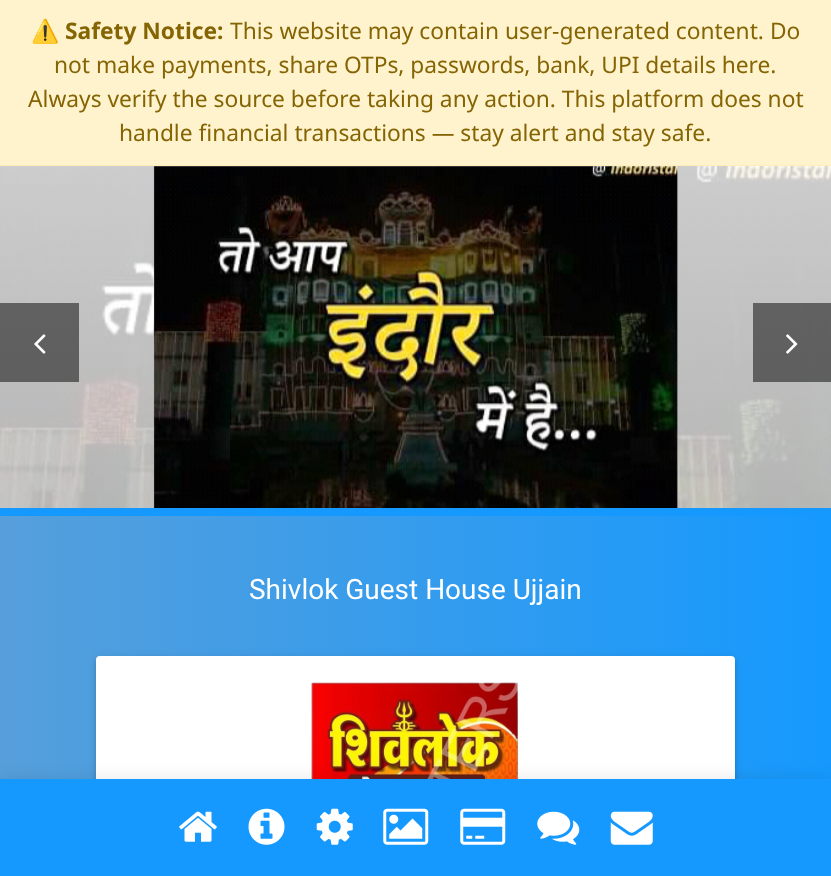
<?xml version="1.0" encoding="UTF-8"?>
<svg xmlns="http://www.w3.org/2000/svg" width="831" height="876">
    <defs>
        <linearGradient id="g1" gradientUnits="userSpaceOnUse" x1="0" y1="648" x2="831" y2="648"><stop offset="0" stop-color="#569FDB"/><stop offset="1" stop-color="#1599FE"/></linearGradient>
        <filter id="blur1" x="-50%" y="-200%" width="200%" height="500%"><feGaussianBlur stdDeviation="4.5"/></filter>
        <filter id="blur2" x="-50%" y="-200%" width="200%" height="500%"><feGaussianBlur stdDeviation="2"/></filter>
        <filter id="blur3" x="-50%" y="-200%" width="200%" height="500%"><feGaussianBlur stdDeviation="9"/></filter>
    </defs>
    <rect width="100%" height="100%" fill="#FFF3CD"/>
    <rect x="0" y="165" width="831" height="1" fill="#FFEEBA"/>
    <text x="31" y="39" font-family="Noto Color Emoji" font-size="22.75" fill="#856404">⚠️</text>
    <text x="65" y="39" font-family="Noto Sans" font-size="22.75" font-weight="700" fill="#856404">Safety Notice:</text>
    <text x="230" y="39" font-family="Noto Sans" font-size="22.75" fill="#856404">This website may contain user-generated content. Do</text>
    <text x="54" y="73" font-family="Noto Sans" font-size="22.75" fill="#856404">not make payments, share OTPs, passwords, bank, UPI details here.</text>
    <text x="28" y="107" font-family="Noto Sans" font-size="22.75" fill="#856404">Always verify the source before taking any action. This platform does not</text>
    <text x="119" y="141" font-family="Noto Sans" font-size="22.75" fill="#856404">handle financial transactions — stay alert and stay safe.</text>
    <image x="0" y="166" width="831" height="342" href="img_01.png"/>
    <image x="153" y="166" width="525" height="342" href="img_02.png"/>
    <rect x="0" y="303" width="79" height="79" fill="#000000" fill-opacity="0.5"/>
    <image x="34" y="334" width="12" height="20" href="img_03.png"/>
    <rect x="753" y="303" width="78" height="79" fill="#000000" fill-opacity="0.5"/>
    <image x="786" y="334" width="12" height="20" href="img_04.png"/>
    <rect x="0" y="508" width="831" height="8" fill="#1599FE"/>
    <rect x="0" y="516" width="831" height="263" fill="url(#g1)"/>
    <text x="249" y="599" font-family="Roboto" font-size="28" fill="#FFFFFF">Shivlok Guest House Ujjain</text>
    <rect x="96" y="658" width="639" height="193" rx="4" fill="#000000" fill-opacity="0.12" filter="url(#blur1)"/>
    <rect x="96" y="660" width="639" height="192" rx="4" fill="#000000" fill-opacity="0.14" filter="url(#blur2)"/>
    <rect x="96" y="656" width="639" height="193" rx="4" fill="#FFFFFF"/>
    <image x="311" y="682" width="209" height="97" href="img_05.png"/>
    <rect x="0" y="779" width="831" height="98" fill="#000000" fill-opacity="0.1" filter="url(#blur3)"/>
    <rect x="0" y="779" width="831" height="97" fill="#1599FE"/>
    <image x="179" y="811" width="38" height="31" href="img_06.png"/>
    <image x="248" y="808" width="37" height="37" href="img_07.png"/>
    <image x="316" y="808" width="37" height="37" href="img_08.png"/>
    <image x="383" y="808" width="46" height="37" href="img_09.png"/>
    <image x="460" y="808" width="46" height="37" href="img_10.png"/>
    <image x="537" y="811" width="43" height="34" href="img_11.png"/>
    <image x="610" y="811" width="43" height="34" href="img_12.png"/>
</svg>
